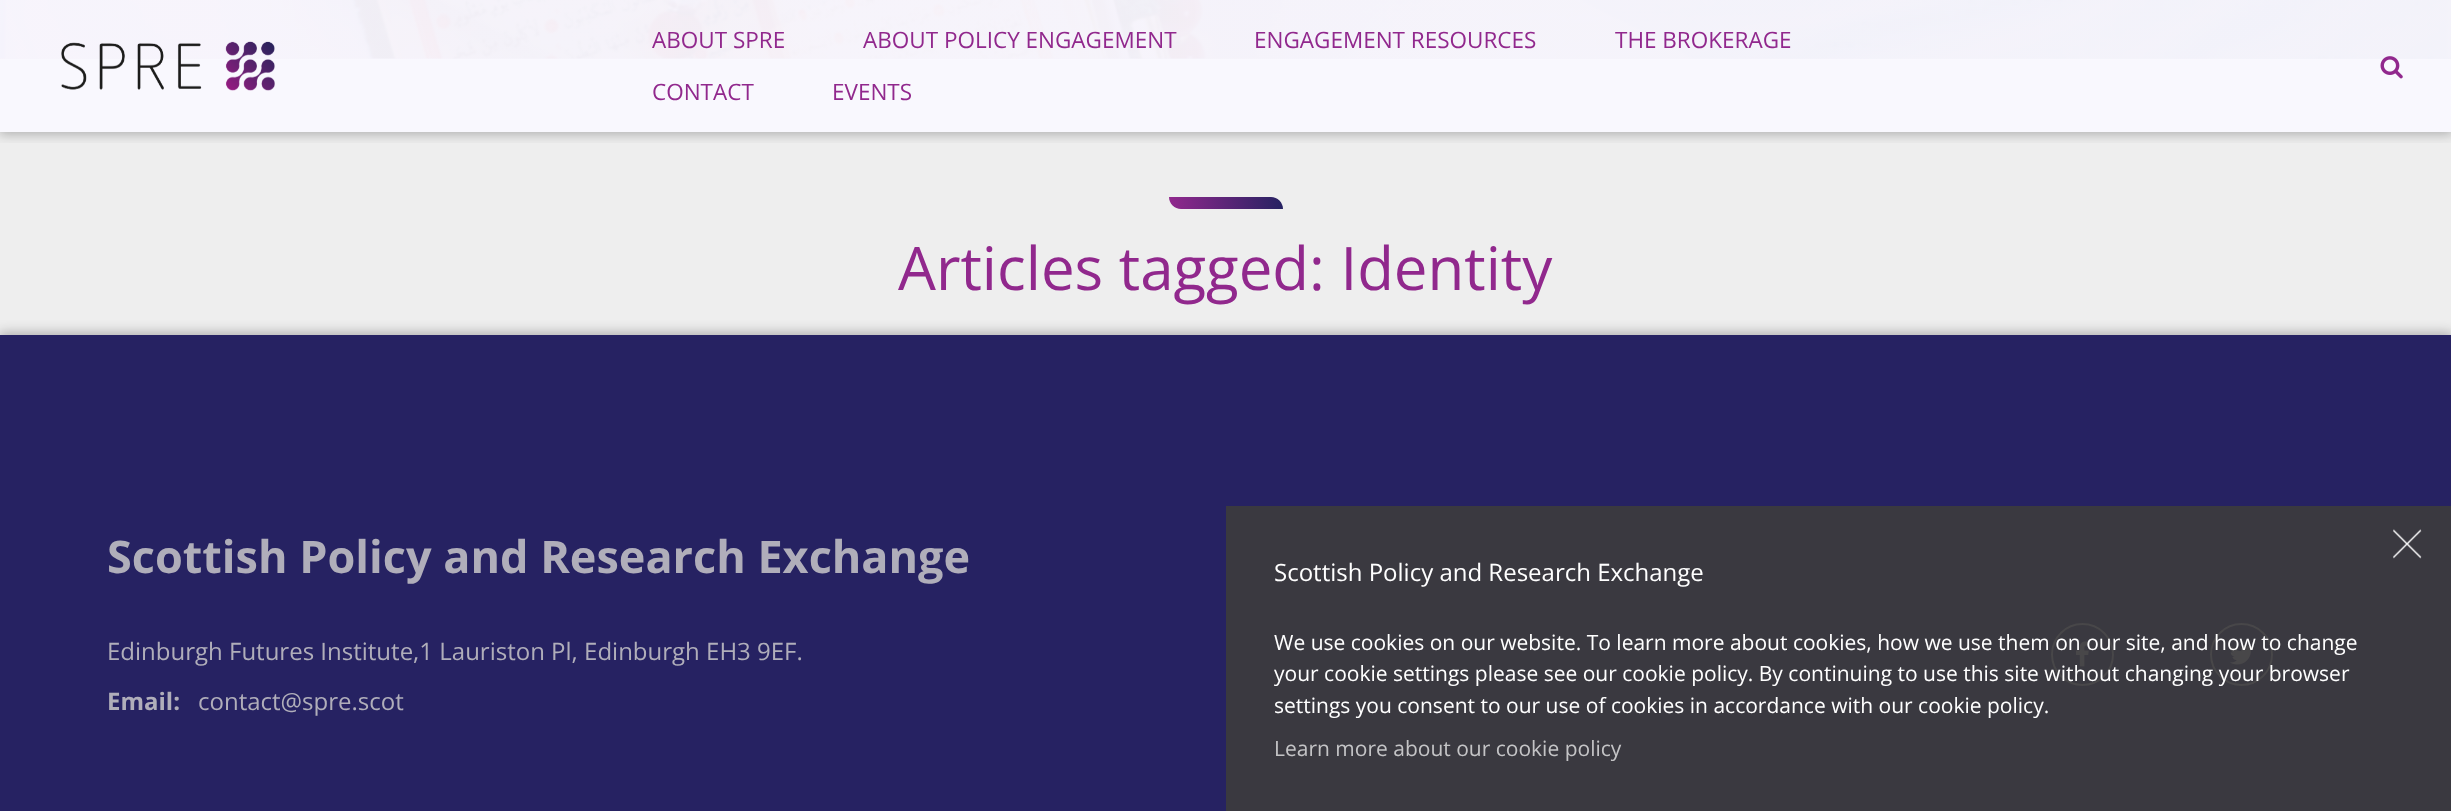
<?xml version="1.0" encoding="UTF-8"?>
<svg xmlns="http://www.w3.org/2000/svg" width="2451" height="811">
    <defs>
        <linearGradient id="g1" gradientUnits="userSpaceOnUse" x1="0" y1="-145" x2="2451" y2="-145"><stop offset="0" stop-color="#F5EFF9" stop-opacity="0.4"/><stop offset="1" stop-color="#EFEEF7" stop-opacity="0.5"/></linearGradient>
        <clipPath id="clip1"><rect x="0" y="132" width="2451" height="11"/></clipPath>
        <filter id="blur1" x="-50%" y="-200%" width="200%" height="500%"><feGaussianBlur stdDeviation="6"/></filter>
        <linearGradient id="g2" gradientUnits="userSpaceOnUse" x1="1169" y1="203" x2="1283" y2="203"><stop offset="0" stop-color="#91288D"/><stop offset="1" stop-color="#262262"/></linearGradient>
    </defs>
    <rect width="100%" height="100%" fill="#EEEEEE"/>
    <rect x="0" y="0" width="2451" height="132" fill="#F9F8FE"/>
    <image x="0" y="0" width="2451" height="59" href="img_01.png"/>
    <rect x="0" y="0" width="2451" height="59" fill="url(#g1)"/>
    <g clip-path="url(#clip1)">
        <rect x="-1" y="0" width="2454" height="135" fill="#000000" fill-opacity="0.25" filter="url(#blur1)"/>
    </g>
    <image x="61" y="41" width="214" height="50" href="img_02.png"/>
    <text x="652" y="48" font-family="Open Sans" font-size="22.5" fill="#91288D">ABOUT SPRE</text>
    <text x="863" y="48" font-family="Open Sans" font-size="22.5" fill="#91288D">ABOUT POLICY ENGAGEMENT</text>
    <text x="1254" y="48" font-family="Open Sans" font-size="22.5" fill="#91288D">ENGAGEMENT RESOURCES</text>
    <text x="1615" y="48" font-family="Open Sans" font-size="22.5" fill="#91288D">THE BROKERAGE</text>
    <text x="652" y="100" font-family="Open Sans" font-size="22.5" fill="#91288D">CONTACT</text>
    <text x="832" y="100" font-family="Open Sans" font-size="22.5" fill="#91288D">EVENTS</text>
    <image x="2380" y="56" width="23" height="23" href="img_03.png"/>
    <path d="M 1169 197 H 1271 C 1277.5 197 1283 202.5 1283 209 H 1181 C 1174.5 209 1169 203.5 1169 197 Z" fill="url(#g2)"/>
    <text x="898" y="290" font-family="Open Sans" font-size="60" fill="#91288D">Articles tagged: Identity</text>
    <rect x="-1" y="332" width="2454" height="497" fill="#000000" fill-opacity="0.25" filter="url(#blur1)"/>
    <rect x="0" y="335" width="2451" height="476" fill="#262262"/>
    <rect x="1226" y="506" width="1225" height="305" fill="#3A3940"/>
    <text x="107" y="573" font-family="Open Sans" font-size="45" font-weight="700" fill="#B0AEBA">Scottish Policy and Research Exchange</text>
    <text x="107" y="660" font-family="Open Sans" font-size="24" fill="#B0AEBA">Edinburgh Futures Institute,1 Lauriston Pl, Edinburgh EH3 9EF.</text>
    <text x="107" y="710" font-family="Open Sans" font-size="24" font-weight="700" fill="#B0AEBA">Email:</text>
    <text x="198" y="710" font-family="Open Sans" font-size="24" fill="#B0AEBA">contact@spre.scot</text>
    <circle cx="2082.5" cy="654.5" r="30.5" fill="none" stroke="#484749" stroke-width="2"/>
    <image x="2075" y="641" width="14" height="26" href="img_04.png"/>
    <circle cx="2241.5" cy="654.5" r="30.5" fill="none" stroke="#484749" stroke-width="2"/>
    <image x="2230" y="645" width="24" height="20" href="img_05.png"/>
    <image x="2393" y="529" width="29" height="30" href="img_06.png"/>
    <text x="1274" y="581" font-family="Open Sans" font-size="24" fill="#FFFFFF">Scottish Policy and Research Exchange</text>
    <text font-family="Open Sans" font-size="21" fill="#FFFFFF">
        <tspan x="1274" y="650">We use cookies on our website. To learn more about cookies, how we use them on our site, and how to change</tspan>
        <tspan x="1274" y="681">your cookie settings please see our cookie policy. By continuing to use this site without changing your browser</tspan>
        <tspan x="1274" y="713">settings you consent to our use of cookies in accordance with our cookie policy.</tspan>
    </text>
    <text x="1274" y="756" font-family="Open Sans" font-size="21" fill="#C4C4C6">Learn more about our cookie policy</text>
</svg>
